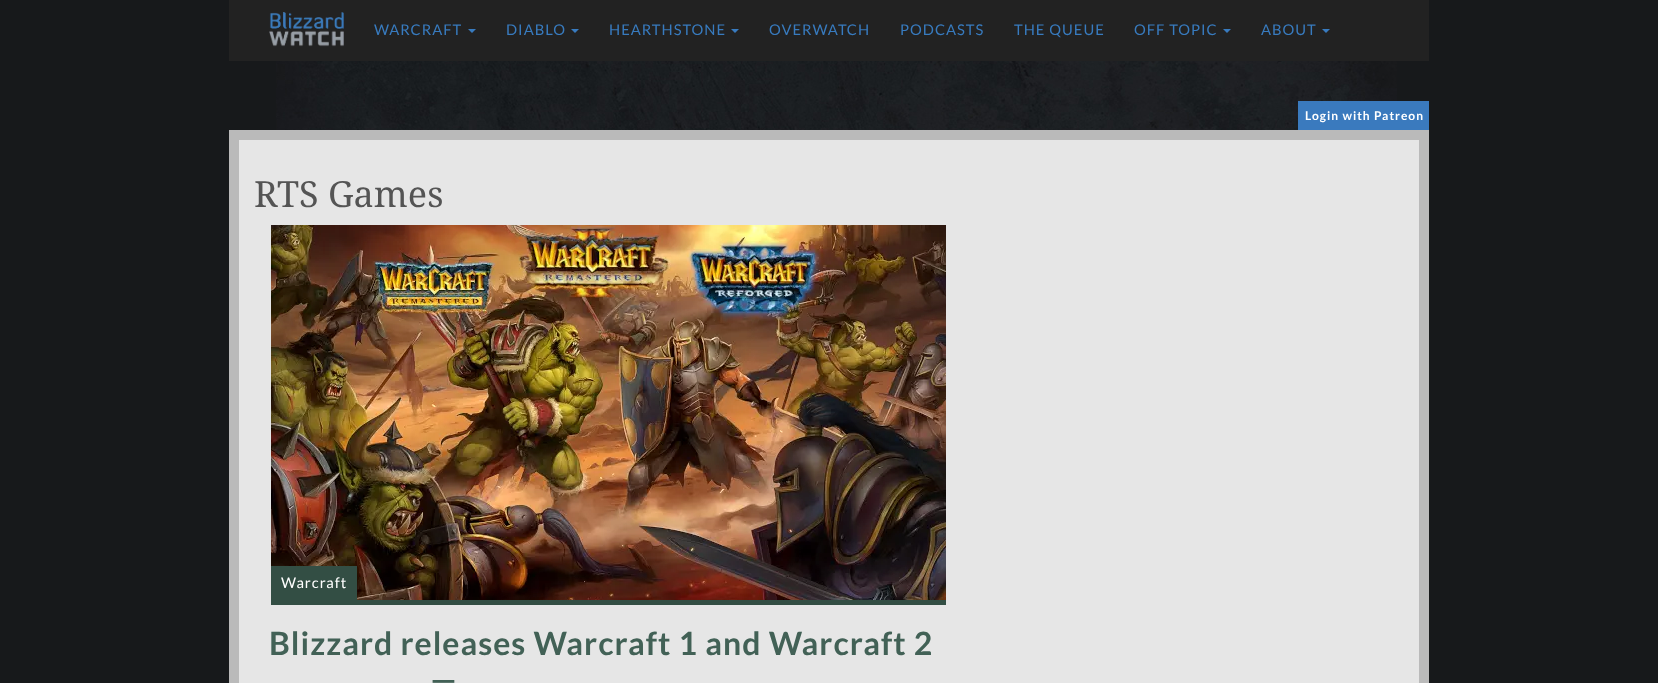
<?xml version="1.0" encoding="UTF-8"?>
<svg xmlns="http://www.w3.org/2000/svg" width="1658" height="683">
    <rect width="100%" height="100%" fill="#17191B"/>
    <image x="276" y="61" width="1121" height="69" href="img_01.png"/>
    <rect x="229" y="0" width="1200" height="61" fill="#222222"/>
    <image x="269" y="12" width="75" height="35" href="img_02.png"/>
    <text x="374" y="35" font-family="Lato" font-size="14.75" letter-spacing="1" fill="#387BBF">WARCRAFT</text>
    <path d="M 468 29 H 476 L 472 33 Z" fill="#387BBF"/>
    <text x="506" y="35" font-family="Lato" font-size="14.75" letter-spacing="1" fill="#387BBF">DIABLO</text>
    <path d="M 571 29 H 579 L 575 33 Z" fill="#387BBF"/>
    <text x="609" y="35" font-family="Lato" font-size="14.75" letter-spacing="1" fill="#387BBF">HEARTHSTONE</text>
    <path d="M 731 29 H 739 L 735 33 Z" fill="#387BBF"/>
    <text x="769" y="35" font-family="Lato" font-size="14.75" letter-spacing="1" fill="#387BBF">OVERWATCH</text>
    <text x="900" y="35" font-family="Lato" font-size="14.75" letter-spacing="1" fill="#387BBF">PODCASTS</text>
    <text x="1014" y="35" font-family="Lato" font-size="14.75" letter-spacing="1" fill="#387BBF">THE QUEUE</text>
    <text x="1134" y="35" font-family="Lato" font-size="14.75" letter-spacing="1" fill="#387BBF">OFF TOPIC</text>
    <path d="M 1223 29 H 1231 L 1227 33 Z" fill="#387BBF"/>
    <text x="1261" y="35" font-family="Lato" font-size="14.75" letter-spacing="1" fill="#387BBF">ABOUT</text>
    <path d="M 1322 29 H 1330 L 1326 33 Z" fill="#387BBF"/>
    <rect x="1298" y="101" width="131" height="29" fill="#3A7ABE"/>
    <text x="1305" y="120" font-family="Lato" font-size="12" font-weight="700" letter-spacing="1" fill="#FFFFFF">Login with Patreon</text>
    <rect x="234" y="135" width="1190" height="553" fill="#E6E6E6" stroke="#BABABA" stroke-width="10"/>
    <text x="254" y="207" font-family="Droid Serif" font-size="36" fill="#545454">RTS Games</text>
    <image x="271" y="225" width="675" height="375" href="img_03.png"/>
    <rect x="271" y="566" width="86" height="34" fill="#334E44"/>
    <text x="281" y="588" font-family="Lato" font-size="14.75" letter-spacing="1" fill="#FFFFFF">Warcraft</text>
    <rect x="271" y="600" width="675" height="5" fill="#334E44"/>
    <text x="269" y="655" font-family="Lato" font-size="32" font-weight="700" letter-spacing="1" fill="#426156">Blizzard releases Warcraft 1 and Warcraft 2</text>
    <text x="430" y="691" font-family="Lato" font-size="32" font-weight="700" letter-spacing="1" fill="#426156">—</text>
</svg>
